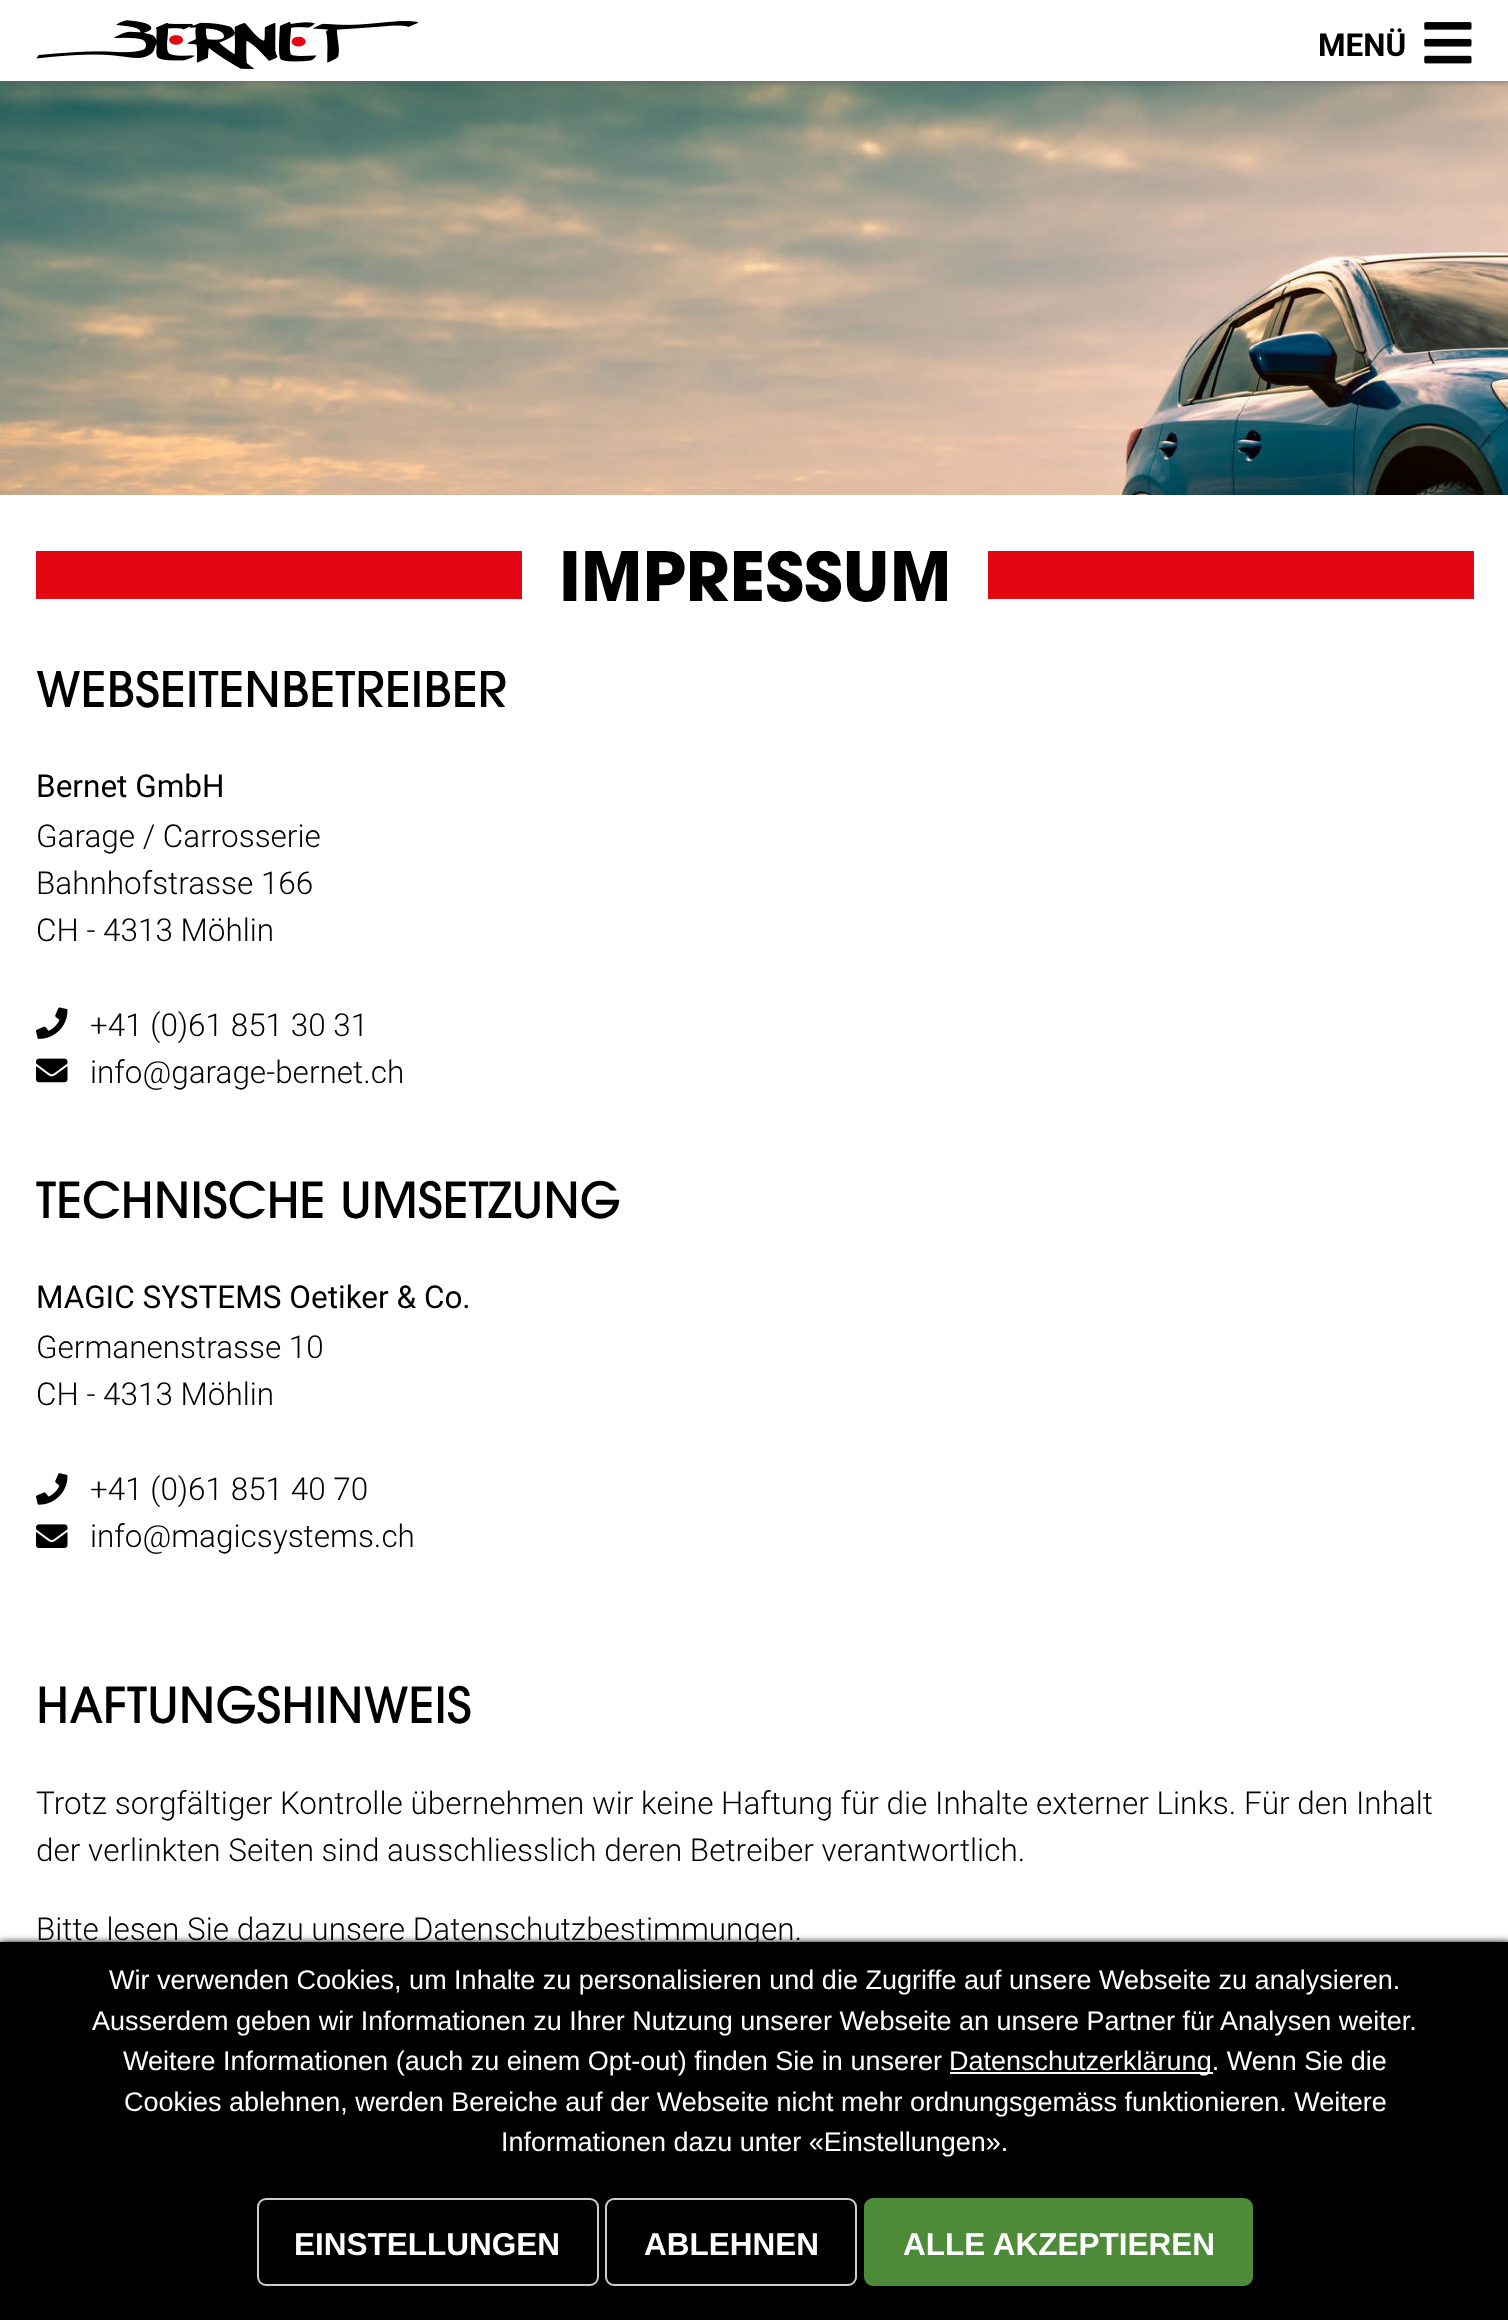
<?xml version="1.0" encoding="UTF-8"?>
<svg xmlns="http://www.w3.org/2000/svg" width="1508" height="2320">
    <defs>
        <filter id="blur1" x="-50%" y="-200%" width="200%" height="500%"><feGaussianBlur stdDeviation="3.5"/></filter>
        <clipPath id="clip1"><rect x="36" y="551" width="1438" height="120"/></clipPath>
        <clipPath id="clip2"><rect x="36" y="671" width="1438" height="976"/></clipPath>
    </defs>
    <rect width="100%" height="100%" fill="#FFFFFF"/>
    <image x="0" y="81" width="1508" height="414" href="img_03.png"/>
    <rect x="0" y="0" width="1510" height="81" fill="#656565" filter="url(#blur1)"/>
    <rect x="0" y="0" width="1508" height="81" fill="#FFFFFF"/>
    <image x="36" y="20" width="383" height="49" href="img_01.png"/>
    <text x="1318" y="56" font-family="Roboto" font-size="31.5" font-weight="700" fill="#000000">MENÜ</text>
    <image x="1424" y="22" width="48" height="42" href="img_02.png"/>
    <rect x="36" y="551" width="486" height="48" fill="#E40613"/>
    <g clip-path="url(#clip1)">
        <text x="559" y="601" font-family="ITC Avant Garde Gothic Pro" font-size="67.5" font-weight="700" fill="#000000">IMPRESSUM</text>
    </g>
    <rect x="988" y="551" width="486" height="48" fill="#E40613"/>
    <g clip-path="url(#clip2)">
        <text x="36" y="707" font-family="ITC Avant Garde Gothic Pro" font-size="49.5" font-weight="500" fill="#000000">WEBSEITENBETREIBER</text>
    </g>
    <text x="36" y="797" font-family="Roboto" font-size="31.5" fill="#000000">Bernet GmbH</text>
    <text font-family="Roboto" font-size="31.5" font-weight="300" fill="#000000">
        <tspan x="36" y="847">Garage / Carrosserie</tspan>
        <tspan x="36" y="894">Bahnhofstrasse 166</tspan>
        <tspan x="36" y="941">CH - 4313 Möhlin</tspan>
    </text>
    <image x="36" y="1007" width="32" height="32" href="img_04.png"/>
    <text x="90" y="1036" font-family="Roboto" font-size="31.5" font-weight="300" fill="#000000">+41 (0)61 851 30 31</text>
    <image x="36" y="1058" width="32" height="25" href="img_05.png"/>
    <text x="90" y="1083" font-family="Roboto" font-size="31.5" font-weight="300" fill="#000000">info@garage-bernet.ch</text>
    <text x="36" y="1218" font-family="ITC Avant Garde Gothic Pro" font-size="49.5" font-weight="500" fill="#000000">TECHNISCHE UMSETZUNG</text>
    <text x="36" y="1308" font-family="Roboto" font-size="31.5" fill="#000000">MAGIC SYSTEMS Oetiker &amp; Co.</text>
    <text font-family="Roboto" font-size="31.5" font-weight="300" fill="#000000">
        <tspan x="36" y="1358">Germanenstrasse 10</tspan>
        <tspan x="36" y="1405">CH - 4313 Möhlin</tspan>
    </text>
    <image x="36" y="1473" width="32" height="32" href="img_06.png"/>
    <text x="90" y="1500" font-family="Roboto" font-size="31.5" font-weight="300" fill="#000000">+41 (0)61 851 40 70</text>
    <image x="36" y="1524" width="32" height="24" href="img_07.png"/>
    <text x="90" y="1547" font-family="Roboto" font-size="31.5" font-weight="300" fill="#000000">info@magicsystems.ch</text>
    <text x="36" y="1723" font-family="ITC Avant Garde Gothic Pro" font-size="49.5" font-weight="500" fill="#000000">HAFTUNGSHINWEIS</text>
    <text font-family="Roboto" font-size="31.5" font-weight="300" fill="#000000">
        <tspan x="36" y="1814">Trotz sorgfältiger Kontrolle übernehmen wir keine Haftung für die Inhalte externer Links. Für den Inhalt</tspan>
        <tspan x="36" y="1861">der verlinkten Seiten sind ausschliesslich deren Betreiber verantwortlich.</tspan>
    </text>
    <text x="36" y="1940" font-family="Roboto" font-size="31.5" font-weight="300" fill="#000000">Bitte lesen Sie dazu unsere Datenschutzbestimmungen.</text>
    <rect x="0" y="1942" width="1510" height="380" fill="#000000" filter="url(#blur1)"/>
    <rect x="0" y="1942" width="1508" height="378" fill="#000000"/>
    <text x="109" y="1989" font-family="Liberation Sans" font-size="27" fill="#FFFFFF">Wir verwenden Cookies, um Inhalte zu personalisieren und die Zugriffe auf unsere Webseite zu analysieren.</text>
    <text x="92" y="2030" font-family="Liberation Sans" font-size="27" fill="#FFFFFF">Ausserdem geben wir Informationen zu Ihrer Nutzung unserer Webseite an unsere Partner für Analysen weiter.</text>
    <text x="123" y="2070" font-family="Liberation Sans" font-size="27" fill="#FFFFFF">Weitere Informationen (auch zu einem Opt-out) finden Sie in unserer</text>
    <rect x="950" y="2072" width="263" height="2" fill="#FFFFFF"/>
    <text x="949" y="2070" font-family="Liberation Sans" font-size="27" fill="#FFFFFF">Datenschutzerklärung. Wenn Sie die</text>
    <text x="124" y="2111" font-family="Liberation Sans" font-size="27" fill="#FFFFFF">Cookies ablehnen, werden Bereiche auf der Webseite nicht mehr ordnungsgemäss funktionieren. Weitere</text>
    <text x="501" y="2151" font-family="Liberation Sans" font-size="27" fill="#FFFFFF">Informationen dazu unter «Einstellungen».</text>
    <rect x="258" y="2199" width="340" height="86" rx="8" fill="none" stroke="#CDCDCD" stroke-width="2"/>
    <text x="294" y="2255" font-family="Liberation Sans" font-size="31.5" font-weight="700" fill="#FFFFFF">EINSTELLUNGEN</text>
    <rect x="606" y="2199" width="250" height="86" rx="8" fill="none" stroke="#CDCDCD" stroke-width="2"/>
    <text x="644" y="2255" font-family="Liberation Sans" font-size="31.5" font-weight="700" fill="#FFFFFF">ABLEHNEN</text>
    <rect x="865" y="2199" width="387" height="86" rx="8" fill="#4E8B38" stroke="#4E8B38" stroke-width="2"/>
    <text x="903" y="2255" font-family="Liberation Sans" font-size="31.5" font-weight="700" fill="#FFFFFF">ALLE AKZEPTIEREN</text>
</svg>
